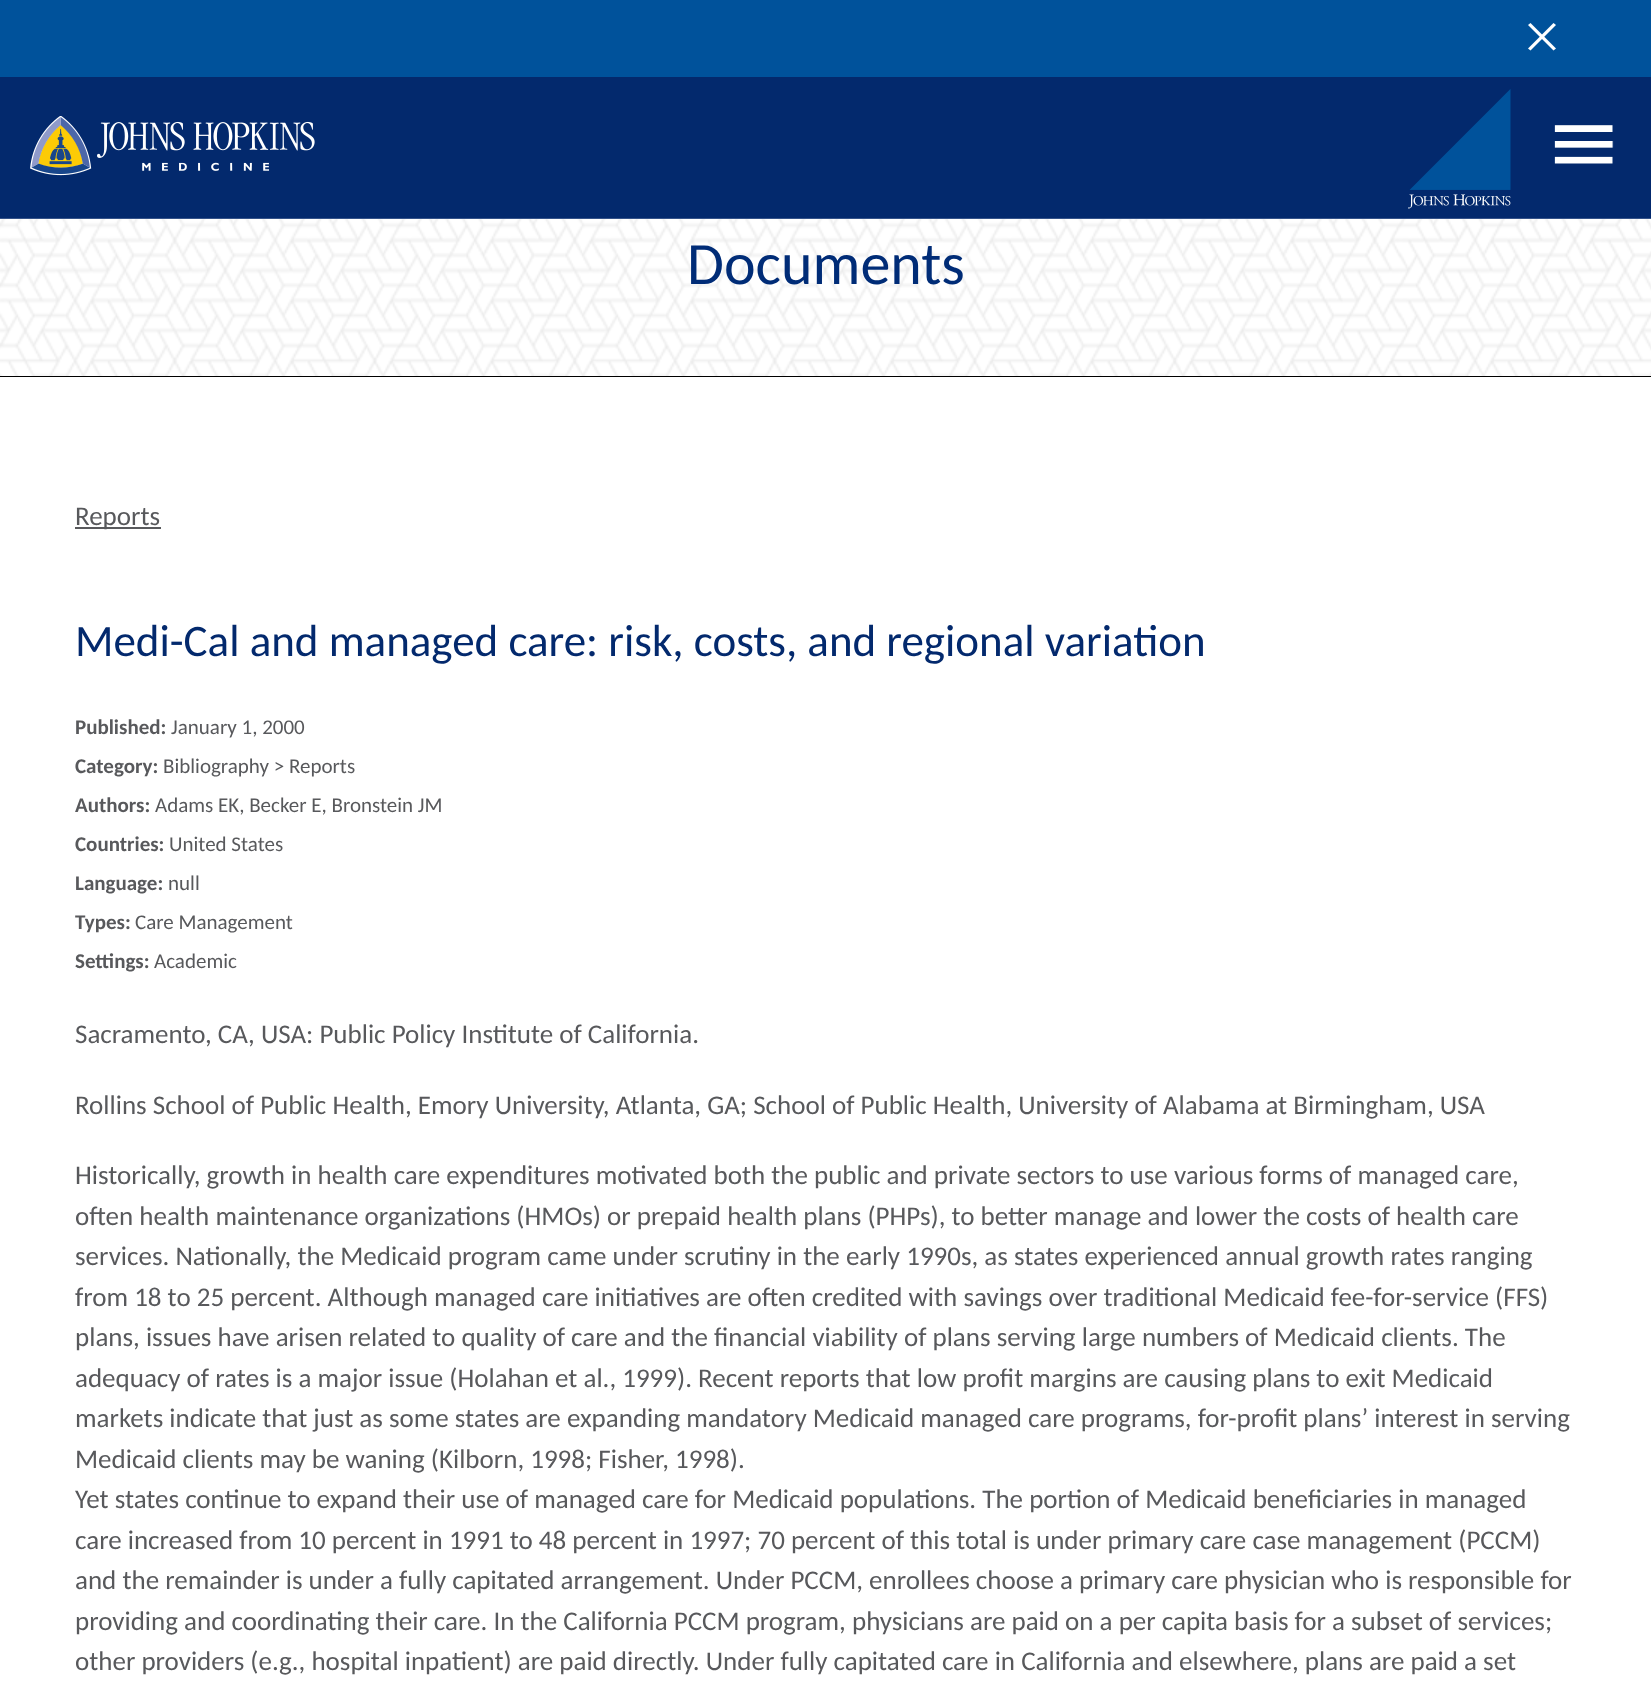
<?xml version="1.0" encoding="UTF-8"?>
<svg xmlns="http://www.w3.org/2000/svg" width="1651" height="1706">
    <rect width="100%" height="100%" fill="#000000"/>
    <rect x="0" y="0" width="1651" height="77" fill="#00529B"/>
    <path d="M 1530.5 23 L 1556 48.5 L 1553.5 50.5 L 1528 25 Z" fill="#FFFFFF"/>
    <path d="M 1528 48.5 L 1553.5 23 L 1556 25 L 1530.5 50.5 Z" fill="#FFFFFF"/>
    <rect x="0" y="77" width="1651" height="142" fill="#03296D"/>
    <image x="0" y="219" width="1651" height="157" href="img_04.png"/>
    <rect x="0" y="218" width="1651" height="2" fill="#FFFFFF" fill-opacity="0.2"/>
    <image x="30" y="116" width="285" height="60" href="img_01.png"/>
    <image x="1408" y="89" width="103" height="120" href="img_02.png"/>
    <image x="1554" y="125" width="60" height="39" href="img_03.png"/>
    <text x="687" y="284" font-family="Carlito" font-size="60" fill="#002C77">Documents</text>
    <rect x="0" y="377" width="1651" height="1329" fill="#FFFFFF"/>
    <rect x="75" y="527" width="86" height="2" fill="#58595C"/>
    <text x="75" y="525" font-family="Carlito" font-size="27" fill="#58595C">Reports</text>
    <text x="75" y="656" font-family="Carlito" font-size="45" fill="#03296D">Medi-Cal and managed care: risk, costs, and regional variation</text>
    <text x="75" y="734" font-family="Carlito" font-size="21" font-weight="700" fill="#58595C">Published:</text>
    <text x="171" y="734" font-family="Carlito" font-size="21" fill="#58595C">January 1, 2000</text>
    <text x="75" y="773" font-family="Carlito" font-size="21" font-weight="700" fill="#58595C">Category:</text>
    <text x="163" y="773" font-family="Carlito" font-size="21" fill="#58595C">Bibliography &gt; Reports</text>
    <text x="75" y="812" font-family="Carlito" font-size="21" font-weight="700" fill="#58595C">Authors:</text>
    <text x="155" y="812" font-family="Carlito" font-size="21" fill="#58595C">Adams EK, Becker E, Bronstein JM</text>
    <text x="75" y="851" font-family="Carlito" font-size="21" font-weight="700" fill="#58595C">Countries:</text>
    <text x="169" y="851" font-family="Carlito" font-size="21" fill="#58595C">United States</text>
    <text x="75" y="890" font-family="Carlito" font-size="21" font-weight="700" fill="#58595C">Language:</text>
    <text x="168" y="890" font-family="Carlito" font-size="21" fill="#58595C">null</text>
    <text x="75" y="929" font-family="Carlito" font-size="21" font-weight="700" fill="#58595C">Types:</text>
    <text x="135" y="929" font-family="Carlito" font-size="21" fill="#58595C">Care Management</text>
    <text x="75" y="968" font-family="Carlito" font-size="21" font-weight="700" fill="#58595C">Settings:</text>
    <text x="154" y="968" font-family="Carlito" font-size="21" fill="#58595C">Academic</text>
    <text x="75" y="1043" font-family="Carlito" font-size="27" fill="#58595C">Sacramento, CA, USA: Public Policy Institute of California.</text>
    <text x="75" y="1114" font-family="Carlito" font-size="27" fill="#58595C">Rollins School of Public Health, Emory University, Atlanta, GA; School of Public Health, University of Alabama at Birmingham, USA</text>
    <text font-family="Carlito" font-size="27" fill="#58595C">
        <tspan x="75" y="1184">Historically, growth in health care expenditures motivated both the public and private sectors to use various forms of managed care,</tspan>
        <tspan x="75" y="1225">often health maintenance organizations (HMOs) or prepaid health plans (PHPs), to better manage and lower the costs of health care</tspan>
        <tspan x="75" y="1265">services. Nationally, the Medicaid program came under scrutiny in the early 1990s, as states experienced annual growth rates ranging</tspan>
        <tspan x="75" y="1306">from 18 to 25 percent. Although managed care initiatives are often credited with savings over traditional Medicaid fee-for-service (FFS)</tspan>
        <tspan x="75" y="1346">plans, issues have arisen related to quality of care and the financial viability of plans serving large numbers of Medicaid clients. The</tspan>
        <tspan x="75" y="1387">adequacy of rates is a major issue (Holahan et al., 1999). Recent reports that low profit margins are causing plans to exit Medicaid</tspan>
        <tspan x="75" y="1427">markets indicate that just as some states are expanding mandatory Medicaid managed care programs, for-profit plans’ interest in serving</tspan>
        <tspan x="75" y="1468">Medicaid clients may be waning (Kilborn, 1998; Fisher, 1998).</tspan>
        <tspan x="75" y="1508">Yet states continue to expand their use of managed care for Medicaid populations. The portion of Medicaid beneficiaries in managed</tspan>
        <tspan x="75" y="1549">care increased from 10 percent in 1991 to 48 percent in 1997; 70 percent of this total is under primary care case management (PCCM)</tspan>
        <tspan x="75" y="1589">and the remainder is under a fully capitated arrangement. Under PCCM, enrollees choose a primary care physician who is responsible for</tspan>
        <tspan x="75" y="1630">providing and coordinating their care. In the California PCCM program, physicians are paid on a per capita basis for a subset of services;</tspan>
        <tspan x="75" y="1670">other providers (e.g., hospital inpatient) are paid directly. Under fully capitated care in California and elsewhere, plans are paid a set</tspan>
    </text>
</svg>
